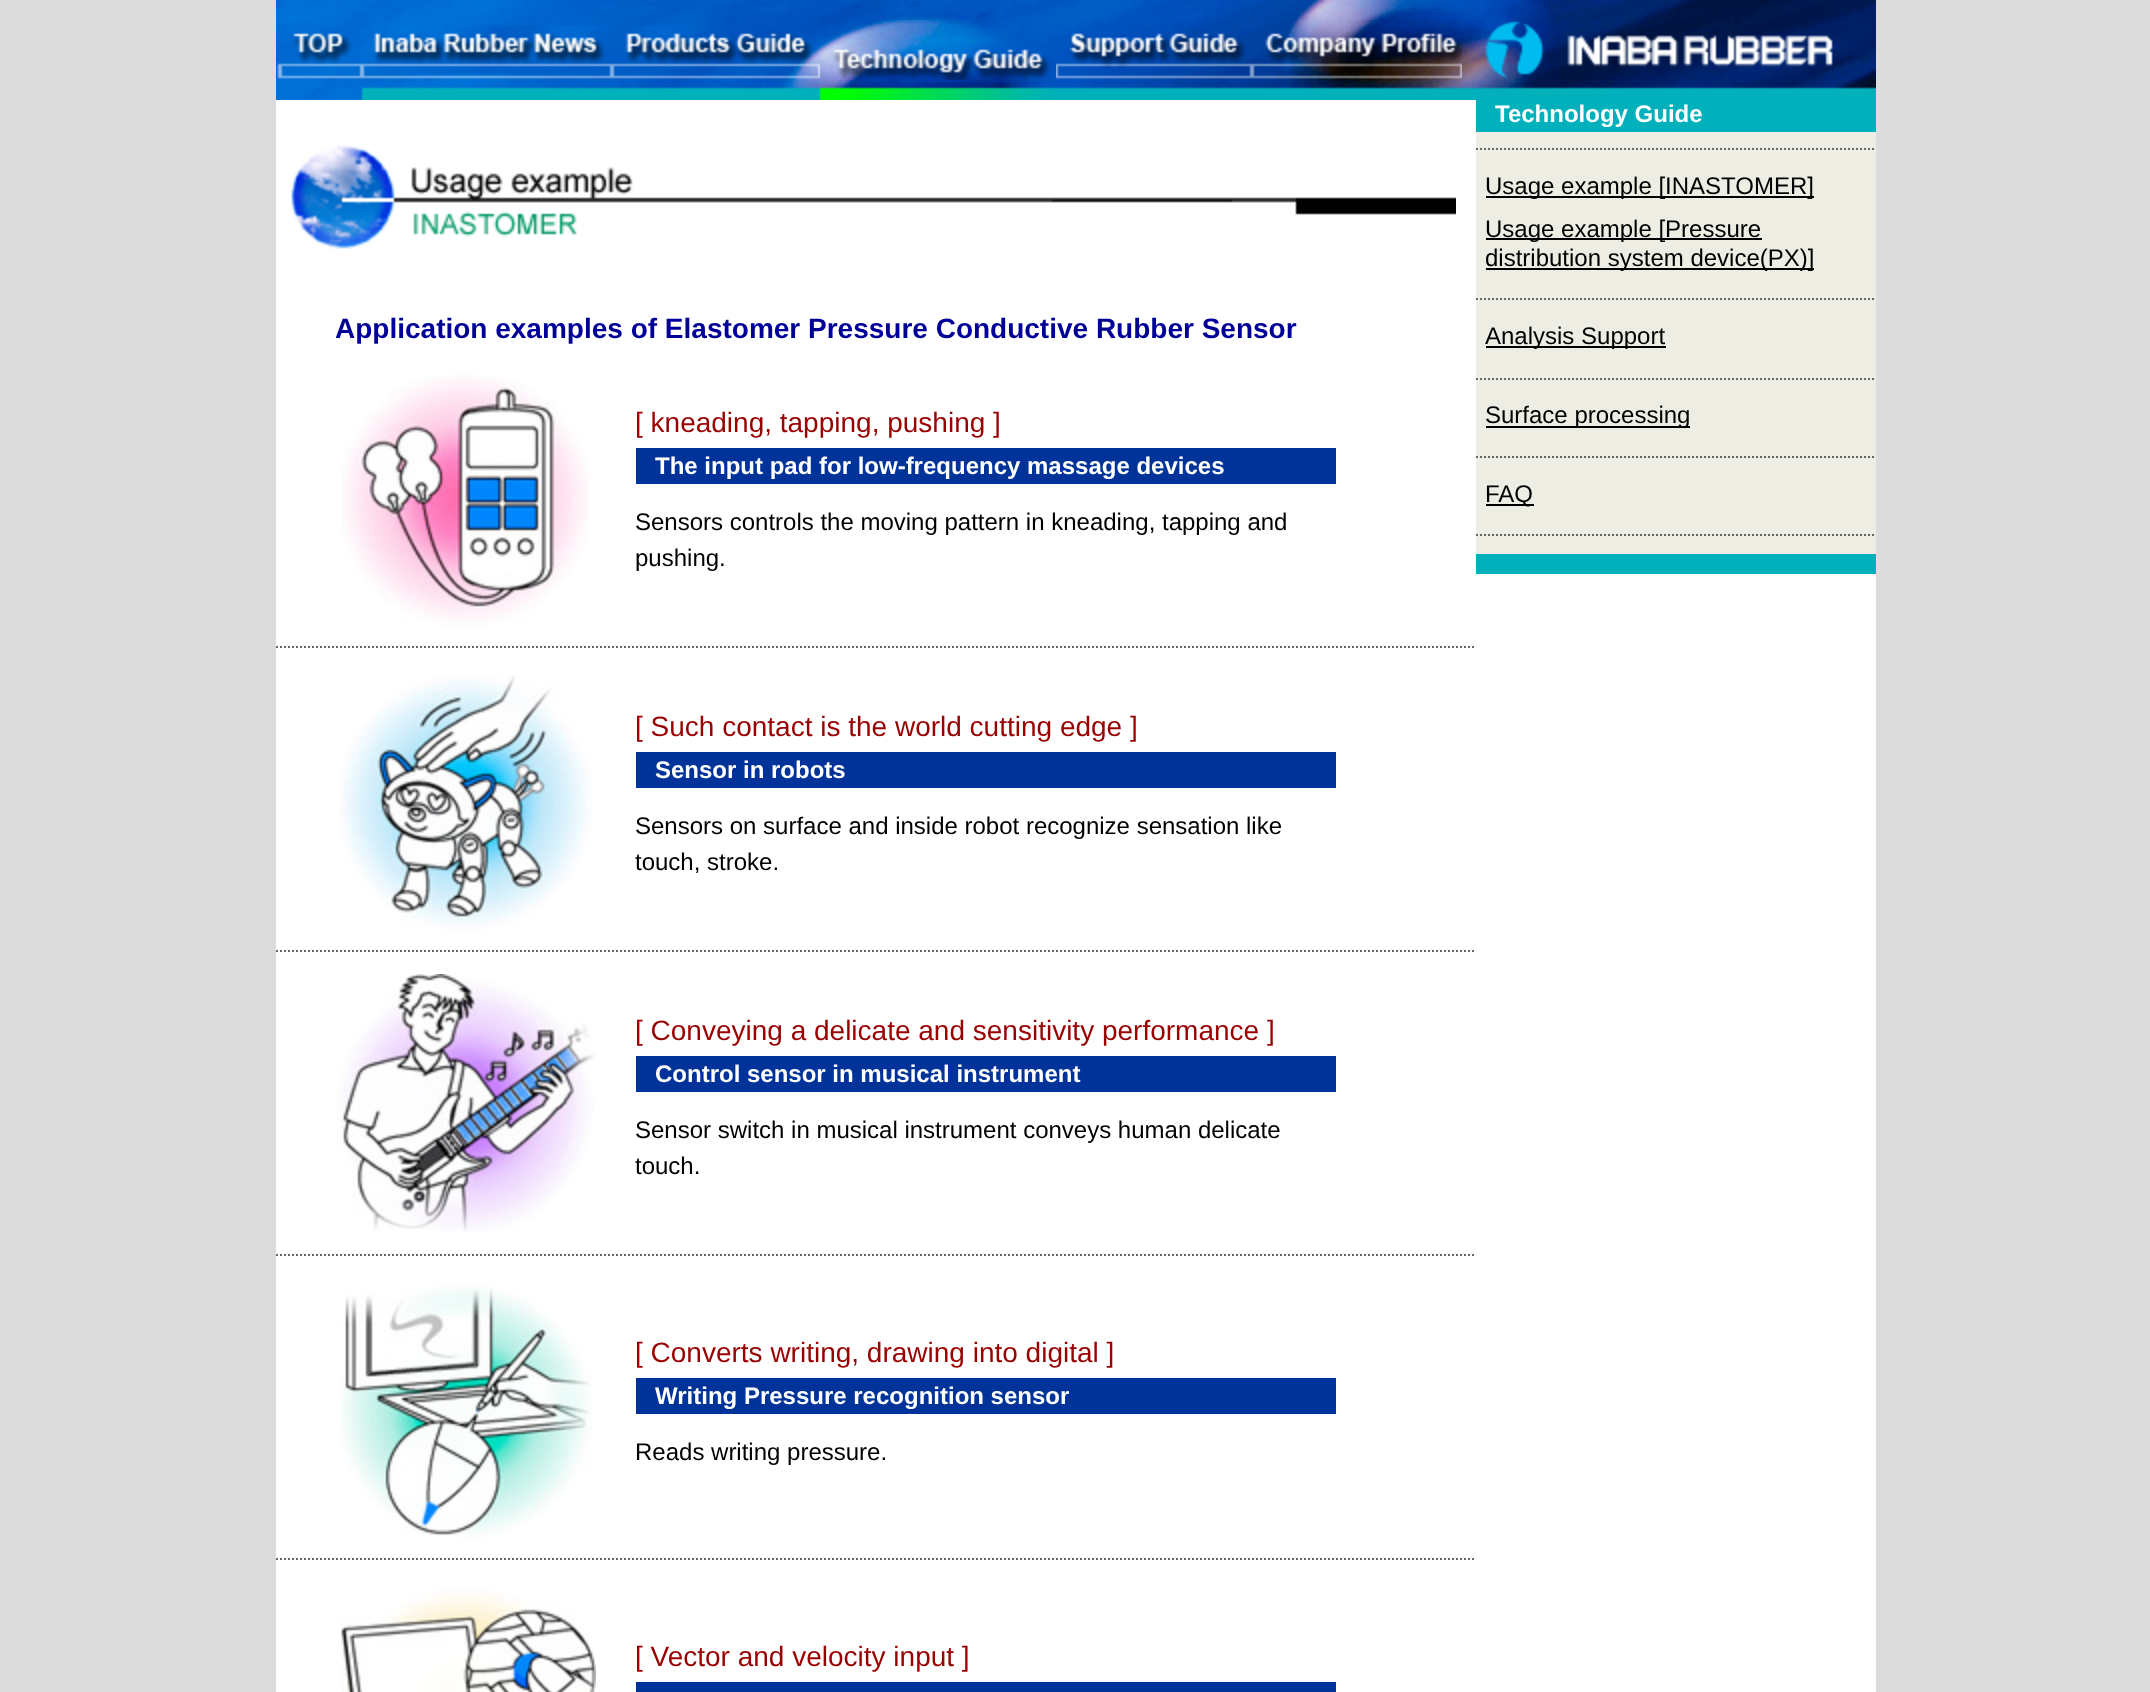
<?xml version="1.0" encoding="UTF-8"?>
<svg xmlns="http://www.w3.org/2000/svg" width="2150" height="1692">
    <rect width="100%" height="100%" fill="#DCDCDC"/>
    <image x="276" y="0" width="1600" height="20" href="img_01.png"/>
    <image x="276" y="20" width="86" height="60" href="img_02.png"/>
    <image x="362" y="20" width="250" height="60" href="img_03.png"/>
    <image x="612" y="20" width="208" height="60" href="img_04.png"/>
    <image x="820" y="20" width="236" height="60" href="img_05.png"/>
    <image x="1056" y="20" width="196" height="60" href="img_06.png"/>
    <image x="1252" y="20" width="210" height="60" href="img_07.png"/>
    <image x="1462" y="20" width="414" height="60" href="img_08.png"/>
    <image x="276" y="80" width="1600" height="20" href="img_09.png"/>
    <rect x="276" y="100" width="1200" height="1592" fill="#FFFFFF"/>
    <image x="291" y="145" width="1165" height="104" href="img_10.png"/>
    <text x="335" y="338" font-family="Liberation Sans" font-size="28" font-weight="700" fill="#000099">Application examples of Elastomer Pressure Conductive Rubber Sensor</text>
    <image x="341" y="375" width="248" height="251" href="img_11.png"/>
    <text x="635" y="432" font-family="Liberation Sans" font-size="28" fill="#990000">[ kneading, tapping, pushing ]</text>
    <rect x="636" y="448" width="700" height="36" fill="#003399"/>
    <text x="655" y="474" font-family="Liberation Sans" font-size="24" font-weight="700" fill="#FFFFFF">The input pad for low-frequency massage devices</text>
    <text font-family="Liberation Sans" font-size="24" fill="#000000">
        <tspan x="635" y="530">Sensors controls the moving pattern in kneading, tapping and</tspan>
        <tspan x="635" y="566">pushing.</tspan>
    </text>
    <path d="M 276 647 H 1476" fill="none" stroke="#666666" stroke-width="2" stroke-dasharray="2 2"/>
    <image x="340" y="675" width="252" height="255" href="img_12.png"/>
    <text x="635" y="736" font-family="Liberation Sans" font-size="28" fill="#990000">[ Such contact is the world cutting edge ]</text>
    <rect x="636" y="752" width="700" height="36" fill="#003399"/>
    <text x="655" y="778" font-family="Liberation Sans" font-size="24" font-weight="700" fill="#FFFFFF">Sensor in robots</text>
    <text font-family="Liberation Sans" font-size="24" fill="#000000">
        <tspan x="635" y="834">Sensors on surface and inside robot recognize sensation like</tspan>
        <tspan x="635" y="870">touch, stroke.</tspan>
    </text>
    <path d="M 276 951 H 1476" fill="none" stroke="#666666" stroke-width="2" stroke-dasharray="2 2"/>
    <image x="336" y="974" width="260" height="258" href="img_13.png"/>
    <text x="635" y="1040" font-family="Liberation Sans" font-size="28" fill="#990000">[ Conveying a delicate and sensitivity performance ]</text>
    <rect x="636" y="1056" width="700" height="36" fill="#003399"/>
    <text x="655" y="1082" font-family="Liberation Sans" font-size="24" font-weight="700" fill="#FFFFFF">Control sensor in musical instrument</text>
    <text font-family="Liberation Sans" font-size="24" fill="#000000">
        <tspan x="635" y="1138">Sensor switch in musical instrument conveys human delicate</tspan>
        <tspan x="635" y="1174">touch.</tspan>
    </text>
    <path d="M 276 1255 H 1476" fill="none" stroke="#666666" stroke-width="2" stroke-dasharray="2 2"/>
    <image x="340" y="1285" width="252" height="253" href="img_14.png"/>
    <text x="635" y="1362" font-family="Liberation Sans" font-size="28" fill="#990000">[ Converts writing, drawing into digital ]</text>
    <rect x="636" y="1378" width="700" height="36" fill="#003399"/>
    <text x="655" y="1404" font-family="Liberation Sans" font-size="24" font-weight="700" fill="#FFFFFF">Writing Pressure recognition sensor</text>
    <text x="635" y="1460" font-family="Liberation Sans" font-size="24" fill="#000000">Reads writing pressure.</text>
    <path d="M 276 1559 H 1476" fill="none" stroke="#666666" stroke-width="2" stroke-dasharray="2 2"/>
    <image x="341" y="1589" width="255" height="103" href="img_15.png"/>
    <text x="635" y="1666" font-family="Liberation Sans" font-size="28" fill="#990000">[ Vector and velocity input ]</text>
    <rect x="636" y="1682" width="700" height="10" fill="#003399"/>
    <rect x="1476" y="574" width="400" height="1118" fill="#FFFFFF"/>
    <rect x="1476" y="100" width="400" height="32" fill="#00B1BB"/>
    <text x="1495" y="122" font-family="Liberation Sans" font-size="24" font-weight="700" fill="#FFFFFF">Technology Guide</text>
    <rect x="1476" y="132" width="400" height="422" fill="#EDEDE3"/>
    <path d="M 1476 149 H 1876" fill="none" stroke="#666666" stroke-width="2" stroke-dasharray="2 2"/>
    <rect x="1486" y="196" width="328" height="2" fill="#000000"/>
    <text x="1485" y="194" font-family="Liberation Sans" font-size="24" fill="#000000">Usage example [INASTOMER]</text>
    <rect x="1486" y="238" width="276" height="2" fill="#000000"/>
    <text x="1485" y="237" font-family="Liberation Sans" font-size="24" fill="#000000">Usage example [Pressure</text>
    <rect x="1486" y="268" width="328" height="2" fill="#000000"/>
    <text x="1485" y="266" font-family="Liberation Sans" font-size="24" fill="#000000">distribution system device(PX)]</text>
    <path d="M 1476 299 H 1876" fill="none" stroke="#666666" stroke-width="2" stroke-dasharray="2 2"/>
    <rect x="1486" y="346" width="180" height="2" fill="#000000"/>
    <text x="1485" y="344" font-family="Liberation Sans" font-size="24" fill="#000000">Analysis Support</text>
    <path d="M 1476 379 H 1876" fill="none" stroke="#666666" stroke-width="2" stroke-dasharray="2 2"/>
    <rect x="1486" y="426" width="204" height="2" fill="#000000"/>
    <text x="1485" y="423" font-family="Liberation Sans" font-size="24" fill="#000000">Surface processing</text>
    <path d="M 1476 457 H 1876" fill="none" stroke="#666666" stroke-width="2" stroke-dasharray="2 2"/>
    <rect x="1486" y="504" width="48" height="2" fill="#000000"/>
    <text x="1485" y="502" font-family="Liberation Sans" font-size="24" fill="#000000">FAQ</text>
    <path d="M 1476 535 H 1876" fill="none" stroke="#666666" stroke-width="2" stroke-dasharray="2 2"/>
    <rect x="1476" y="554" width="400" height="20" fill="#00B1BB"/>
</svg>
